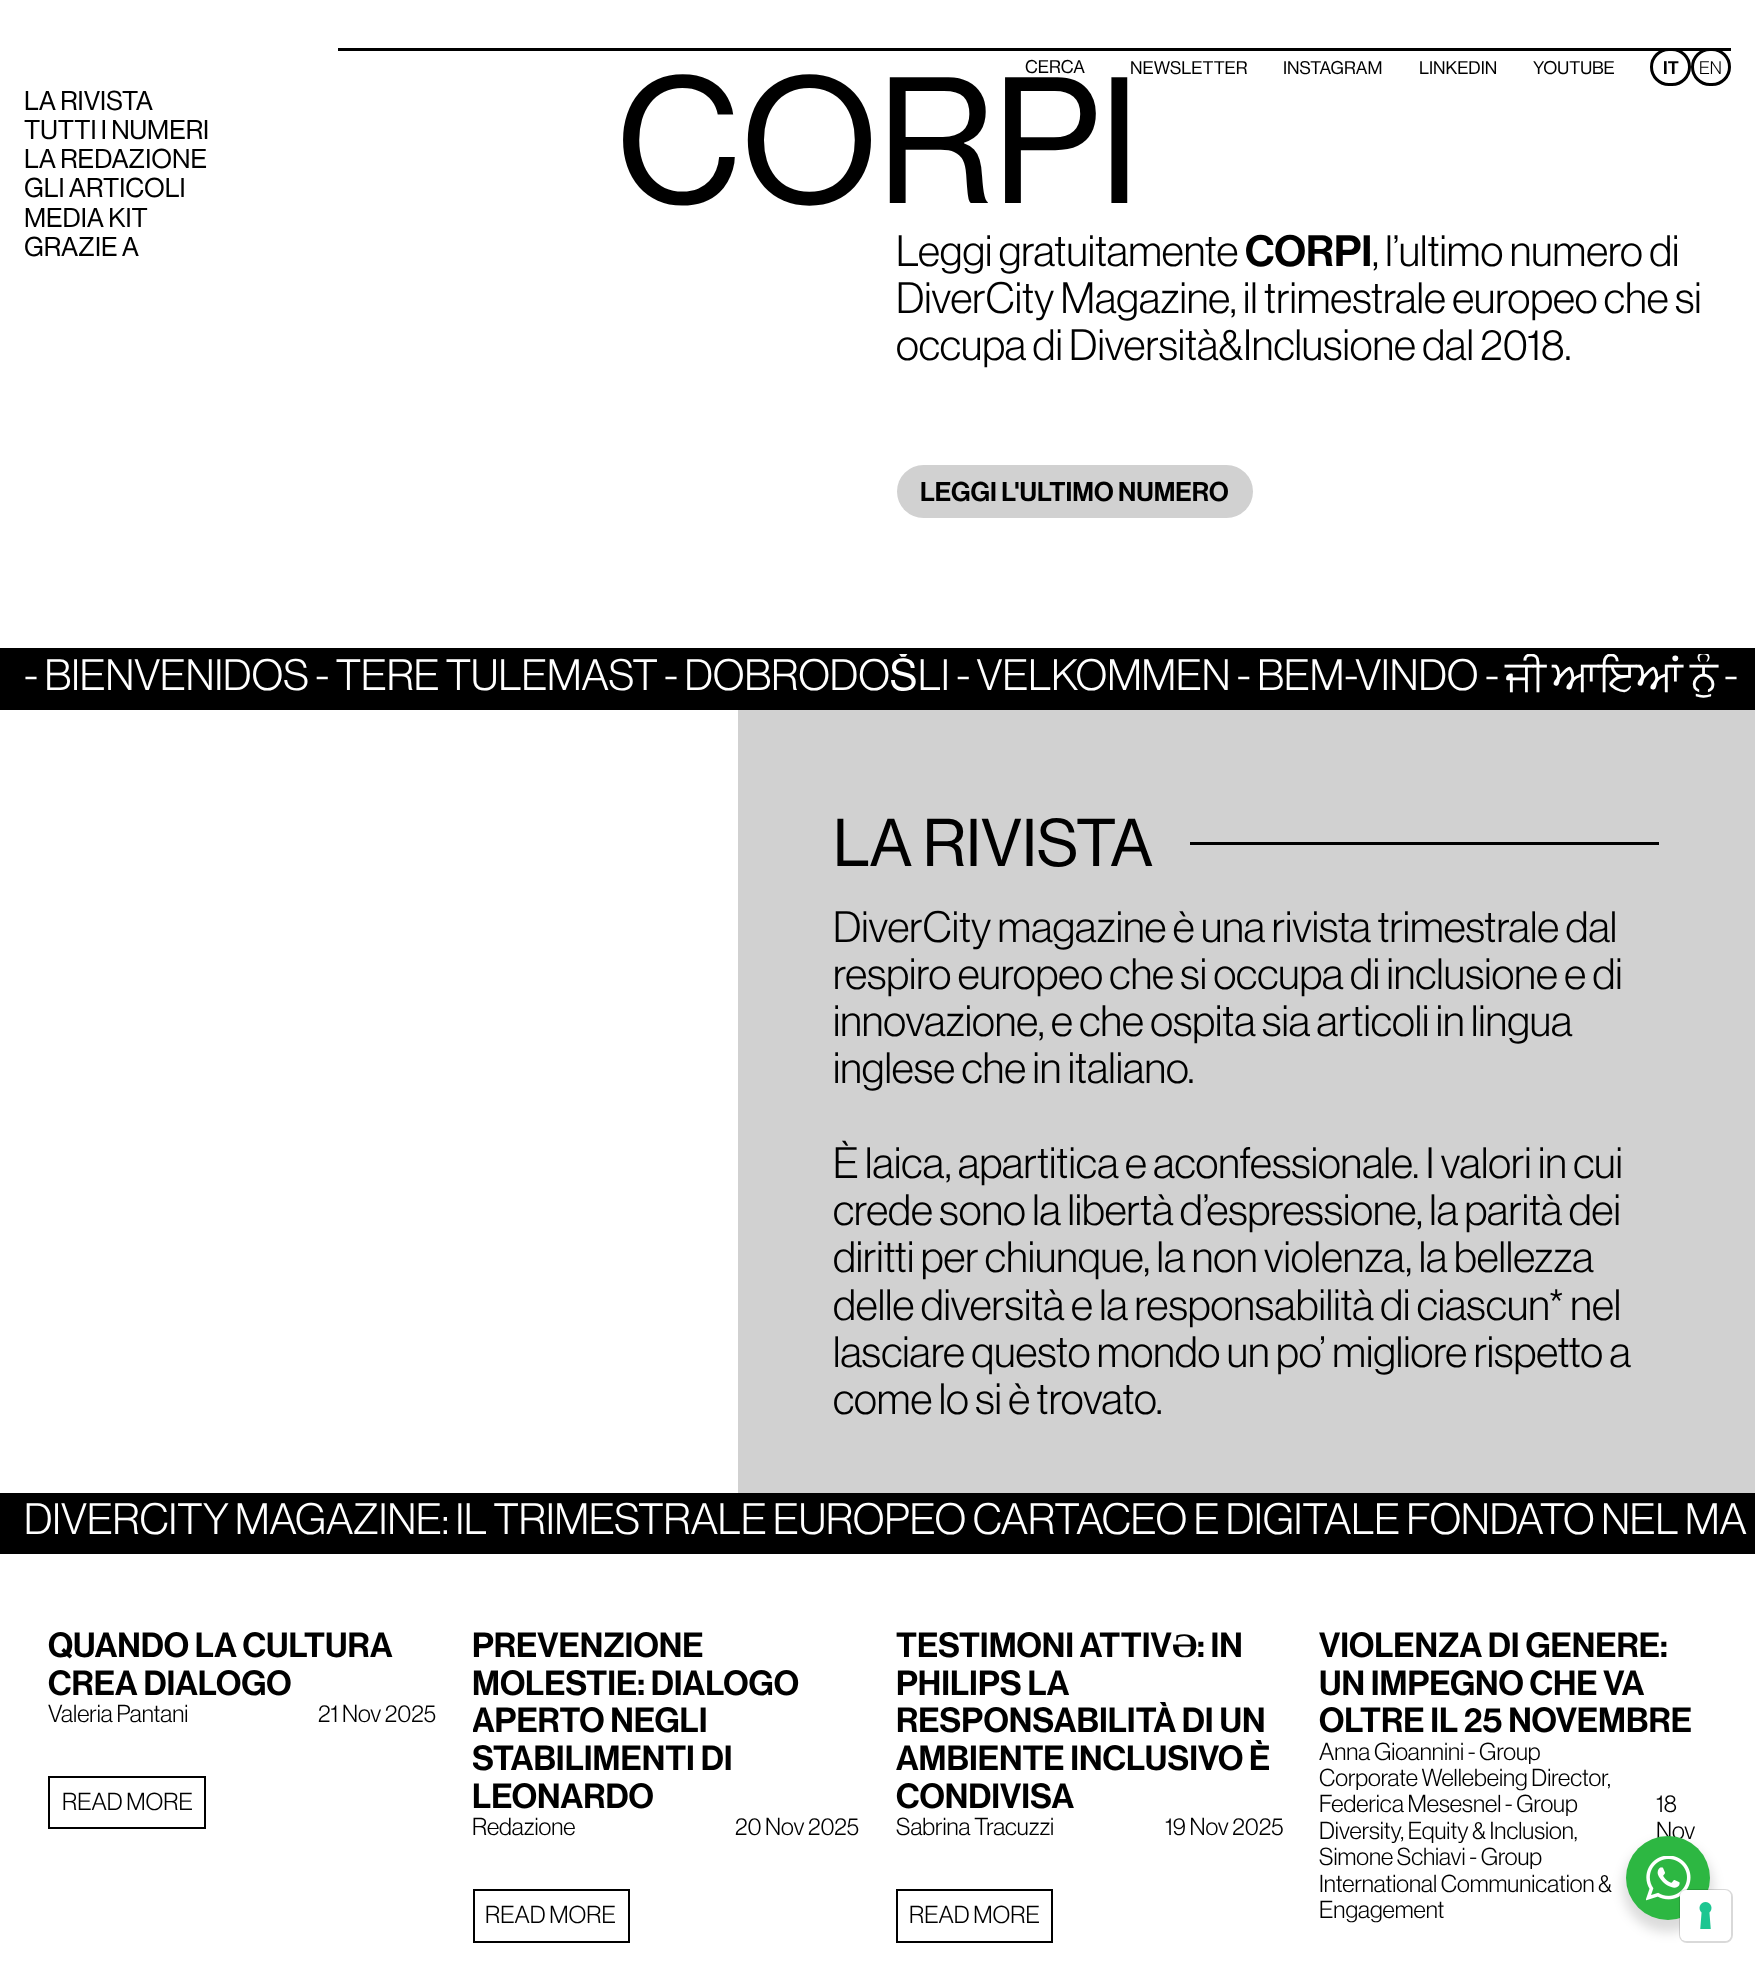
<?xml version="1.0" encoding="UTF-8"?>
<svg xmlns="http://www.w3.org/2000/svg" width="1755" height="1964">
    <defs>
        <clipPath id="clip1"><rect x="0" y="654" width="1755" height="44"/></clipPath>
        <clipPath id="clip2"><rect x="473" y="1578" width="387" height="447"/></clipPath>
        <filter id="blur1" x="-50%" y="-200%" width="200%" height="500%"><feGaussianBlur stdDeviation="6"/></filter>
    </defs>
    <rect width="100%" height="100%" fill="#FFFFFF"/>
    <rect x="338" y="48" width="1393" height="3" fill="#000000"/>
    <text x="1025" y="73" font-family="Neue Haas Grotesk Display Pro" font-size="18" font-weight="500" fill="#000000">CERCA</text>
    <text x="1130" y="74" font-family="Neue Haas Grotesk Display Pro" font-size="18" font-weight="500" fill="#000000">NEWSLETTER</text>
    <text x="1283" y="74" font-family="Neue Haas Grotesk Display Pro" font-size="18" font-weight="500" fill="#000000">INSTAGRAM</text>
    <text x="1419" y="74" font-family="Neue Haas Grotesk Display Pro" font-size="18" font-weight="500" fill="#000000">LINKEDIN</text>
    <text x="1533" y="74" font-family="Neue Haas Grotesk Display Pro" font-size="18" font-weight="500" fill="#000000">YOUTUBE</text>
    <rect x="1651.5" y="49.5" width="38" height="35" rx="17.5" fill="none" stroke="#000000" stroke-width="3"/>
    <text x="1663" y="74" font-family="'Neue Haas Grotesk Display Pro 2'" font-size="18" font-weight="500" fill="#000000">IT</text>
    <rect x="1692.5" y="49.5" width="37" height="35" rx="17.5" fill="none" stroke="#000000" stroke-width="3"/>
    <text x="1699" y="74" font-family="Neue Haas Grotesk Display Pro" font-size="18" fill="#000000">EN</text>
    <text font-family="Neue Haas Grotesk Display Pro" font-size="26.6" font-weight="500" fill="#000000">
        <tspan x="24" y="110">LA RIVISTA</tspan>
        <tspan x="24" y="139">TUTTI I NUMERI</tspan>
        <tspan x="24" y="168">LA REDAZIONE</tspan>
        <tspan x="24" y="197">GLI ARTICOLI</tspan>
        <tspan x="24" y="227">MEDIA KIT</tspan>
        <tspan x="24" y="256">GRAZIE A</tspan>
    </text>
    <text x="616" y="203" font-family="Neue Haas Grotesk Display Pro" font-size="176" font-weight="500" fill="#000000">CORPI</text>
    <text x="896" y="266" font-family="Neue Haas Grotesk Display Pro" font-size="42.95" fill="#000000">Leggi gratuitamente</text>
    <text x="1245" y="266" font-family="'Neue Haas Grotesk Display Pro 2'" font-size="42.95" font-weight="500" fill="#000000">CORPI</text>
    <text x="1372" y="266" font-family="Neue Haas Grotesk Display Pro" font-size="42.95" fill="#000000">, l’ultimo numero di</text>
    <text font-family="Neue Haas Grotesk Display Pro" font-size="42.95" fill="#000000">
        <tspan x="896" y="313">DiverCity Magazine, il trimestrale europeo che si</tspan>
        <tspan x="896" y="360">occupa di Diversità&amp;Inclusione dal 2018.</tspan>
    </text>
    <rect x="897" y="465" width="356" height="53" rx="26.5" fill="#D1D1D1"/>
    <text x="920" y="501" font-family="'Neue Haas Grotesk Display Pro 2'" font-size="26.6" font-weight="500" fill="#000000">LEGGI L'ULTIMO NUMERO</text>
    <rect x="0" y="648" width="1755" height="62" fill="#000000"/>
    <text x="24" y="690" font-family="Neue Haas Grotesk Display Pro" font-size="42.95" fill="#FFFFFF">- BIENVENIDOS - TERE TULEMAST - DOBRODO</text>
    <g clip-path="url(#clip1)">
        <text x="889" y="690" font-family="FreeSans" font-size="42.95" fill="#FFFFFF">Š</text>
    </g>
    <text x="918" y="690" font-family="Neue Haas Grotesk Display Pro" font-size="42.95" fill="#FFFFFF">LI - VELKOMMEN - BEM-VINDO -</text>
    <g clip-path="url(#clip1)">
        <text x="1505" y="690" font-family="FreeSans" font-size="42.95" fill="#FFFFFF">ਜੀ</text>
        <text x="1552" y="690" font-family="FreeSans" font-size="42.95" fill="#FFFFFF">ਆਇਆਂ</text>
        <text x="1690" y="690" font-family="FreeSans" font-size="42.95" fill="#FFFFFF">ਨੂੰ</text>
    </g>
    <text x="1724" y="690" font-family="Neue Haas Grotesk Display Pro" font-size="42.95" fill="#FFFFFF">-</text>
    <rect x="738" y="710" width="1017" height="783" fill="#D1D1D1"/>
    <text x="833" y="866" font-family="Neue Haas Grotesk Display Pro" font-size="66" font-weight="500" fill="#000000">LA RIVISTA</text>
    <rect x="1190" y="842" width="469" height="3" fill="#000000"/>
    <text font-family="Neue Haas Grotesk Display Pro" font-size="42.95" fill="#000000">
        <tspan x="833" y="942">DiverCity magazine è una rivista trimestrale dal</tspan>
        <tspan x="833" y="989">respiro europeo che si occupa di inclusione e di</tspan>
        <tspan x="833" y="1036">innovazione, e che ospita sia articoli in lingua</tspan>
        <tspan x="833" y="1083">inglese che in italiano.</tspan>
    </text>
    <text font-family="Neue Haas Grotesk Display Pro" font-size="42.95" fill="#000000">
        <tspan x="833" y="1178">È laica, apartitica e aconfessionale. I valori in cui</tspan>
        <tspan x="833" y="1225">crede sono la libertà d’espressione, la parità dei</tspan>
        <tspan x="833" y="1272">diritti per chiunque, la non violenza, la bellezza</tspan>
        <tspan x="833" y="1320">delle diversità e la responsabilità di ciascun* nel</tspan>
        <tspan x="833" y="1367">lasciare questo mondo un po’ migliore rispetto a</tspan>
        <tspan x="833" y="1414">come lo si è trovato.</tspan>
    </text>
    <rect x="0" y="1493" width="1755" height="61" fill="#000000"/>
    <text x="24" y="1534" font-family="Neue Haas Grotesk Display Pro" font-size="42.95" fill="#FFFFFF">DIVERCITY MAGAZINE: IL TRIMESTRALE EUROPEO CARTACEO E DIGITALE FONDATO NEL MA</text>
    <text font-family="'Neue Haas Grotesk Display Pro 2'" font-size="34.25" font-weight="500" fill="#000000">
        <tspan x="48" y="1657">QUANDO LA CULTURA</tspan>
        <tspan x="48" y="1695">CREA DIALOGO</tspan>
    </text>
    <text x="48" y="1722" font-family="Neue Haas Grotesk Display Pro" font-size="24" fill="#000000">Valeria Pantani</text>
    <text x="318" y="1722" font-family="Neue Haas Grotesk Display Pro" font-size="24" fill="#000000">21 Nov 2025</text>
    <rect x="49" y="1777" width="156" height="51" fill="none" stroke="#000000" stroke-width="2"/>
    <text x="62" y="1810" font-family="Neue Haas Grotesk Display Pro" font-size="24" fill="#000000">READ MORE</text>
    <text font-family="'Neue Haas Grotesk Display Pro 2'" font-size="34.25" font-weight="500" fill="#000000">
        <tspan x="472" y="1657">PREVENZIONE</tspan>
        <tspan x="472" y="1695">MOLESTIE: DIALOGO</tspan>
    </text>
    <g clip-path="url(#clip2)">
        <text font-family="'Neue Haas Grotesk Display Pro 2'" font-size="34.25" font-weight="500" fill="#000000">
            <tspan x="472" y="1732">APERTO NEGLI</tspan>
            <tspan x="472" y="1770">STABILIMENTI DI</tspan>
        </text>
    </g>
    <text x="472" y="1808" font-family="'Neue Haas Grotesk Display Pro 2'" font-size="34.25" font-weight="500" fill="#000000">LEONARDO</text>
    <text x="472" y="1835" font-family="Neue Haas Grotesk Display Pro" font-size="24" fill="#000000">Redazione</text>
    <text x="735" y="1835" font-family="Neue Haas Grotesk Display Pro" font-size="24" fill="#000000">20 Nov 2025</text>
    <rect x="474" y="1890" width="155" height="52" fill="none" stroke="#000000" stroke-width="2"/>
    <text x="485" y="1923" font-family="Neue Haas Grotesk Display Pro" font-size="24" fill="#000000">READ MORE</text>
    <text x="896" y="1657" font-family="'Neue Haas Grotesk Display Pro 2'" font-size="34.25" font-weight="500" fill="#000000">TESTIMONI ATTIV</text>
    <text x="1172" y="1657" font-family="Liberation Serif" font-size="34.25" font-weight="700" fill="#000000">Ə</text>
    <text x="1197" y="1657" font-family="'Neue Haas Grotesk Display Pro 2'" font-size="34.25" font-weight="500" fill="#000000">: IN</text>
    <text font-family="'Neue Haas Grotesk Display Pro 2'" font-size="34.25" font-weight="500" fill="#000000">
        <tspan x="896" y="1695">PHILIPS LA</tspan>
        <tspan x="896" y="1732">RESPONSABILITÀ DI UN</tspan>
        <tspan x="896" y="1770">AMBIENTE INCLUSIVO È</tspan>
        <tspan x="896" y="1808">CONDIVISA</tspan>
    </text>
    <text x="896" y="1835" font-family="Neue Haas Grotesk Display Pro" font-size="24" fill="#000000">Sabrina Tracuzzi</text>
    <text x="1165" y="1835" font-family="Neue Haas Grotesk Display Pro" font-size="24" fill="#000000">19 Nov 2025</text>
    <rect x="897" y="1890" width="155" height="52" fill="none" stroke="#000000" stroke-width="2"/>
    <text x="909" y="1923" font-family="Neue Haas Grotesk Display Pro" font-size="24" fill="#000000">READ MORE</text>
    <text font-family="'Neue Haas Grotesk Display Pro 2'" font-size="34.25" font-weight="500" fill="#000000">
        <tspan x="1319" y="1657">VIOLENZA DI GENERE:</tspan>
        <tspan x="1319" y="1695">UN IMPEGNO CHE VA</tspan>
        <tspan x="1319" y="1732">OLTRE IL 25 NOVEMBRE</tspan>
    </text>
    <text font-family="Neue Haas Grotesk Display Pro" font-size="24" fill="#000000">
        <tspan x="1319" y="1760">Anna Gioannini - Group</tspan>
        <tspan x="1319" y="1786">Corporate Wellebeing Director,</tspan>
        <tspan x="1319" y="1812">Federica Mesesnel - Group</tspan>
    </text>
    <text font-family="Neue Haas Grotesk Display Pro" font-size="24" fill="#000000">
        <tspan x="1656" y="1812">18</tspan>
        <tspan x="1656" y="1839">Nov</tspan>
    </text>
    <text font-family="Neue Haas Grotesk Display Pro" font-size="24" fill="#000000">
        <tspan x="1319" y="1839">Diversity, Equity &amp; Inclusion,</tspan>
        <tspan x="1319" y="1865">Simone Schiavi - Group</tspan>
        <tspan x="1319" y="1892">International Communication &amp;</tspan>
        <tspan x="1319" y="1918">Engagement</tspan>
    </text>
    <rect x="1623" y="1842" width="90" height="90" rx="45" fill="#000000" fill-opacity="0.14" filter="url(#blur1)"/>
    <circle cx="1668" cy="1878" r="42" fill="#2DB742"/>
    <image x="1646" y="1856" width="45" height="45" href="img_01.png"/>
    <rect x="1680" y="1890" width="52" height="52" rx="7" fill="none" stroke="#000000" stroke-opacity="0.15" stroke-width="2"/>
    <rect x="1680" y="1890" width="51" height="51" rx="6" fill="#FFFFFF"/>
    <image x="1699" y="1902" width="13" height="27" href="img_02.png"/>
</svg>
